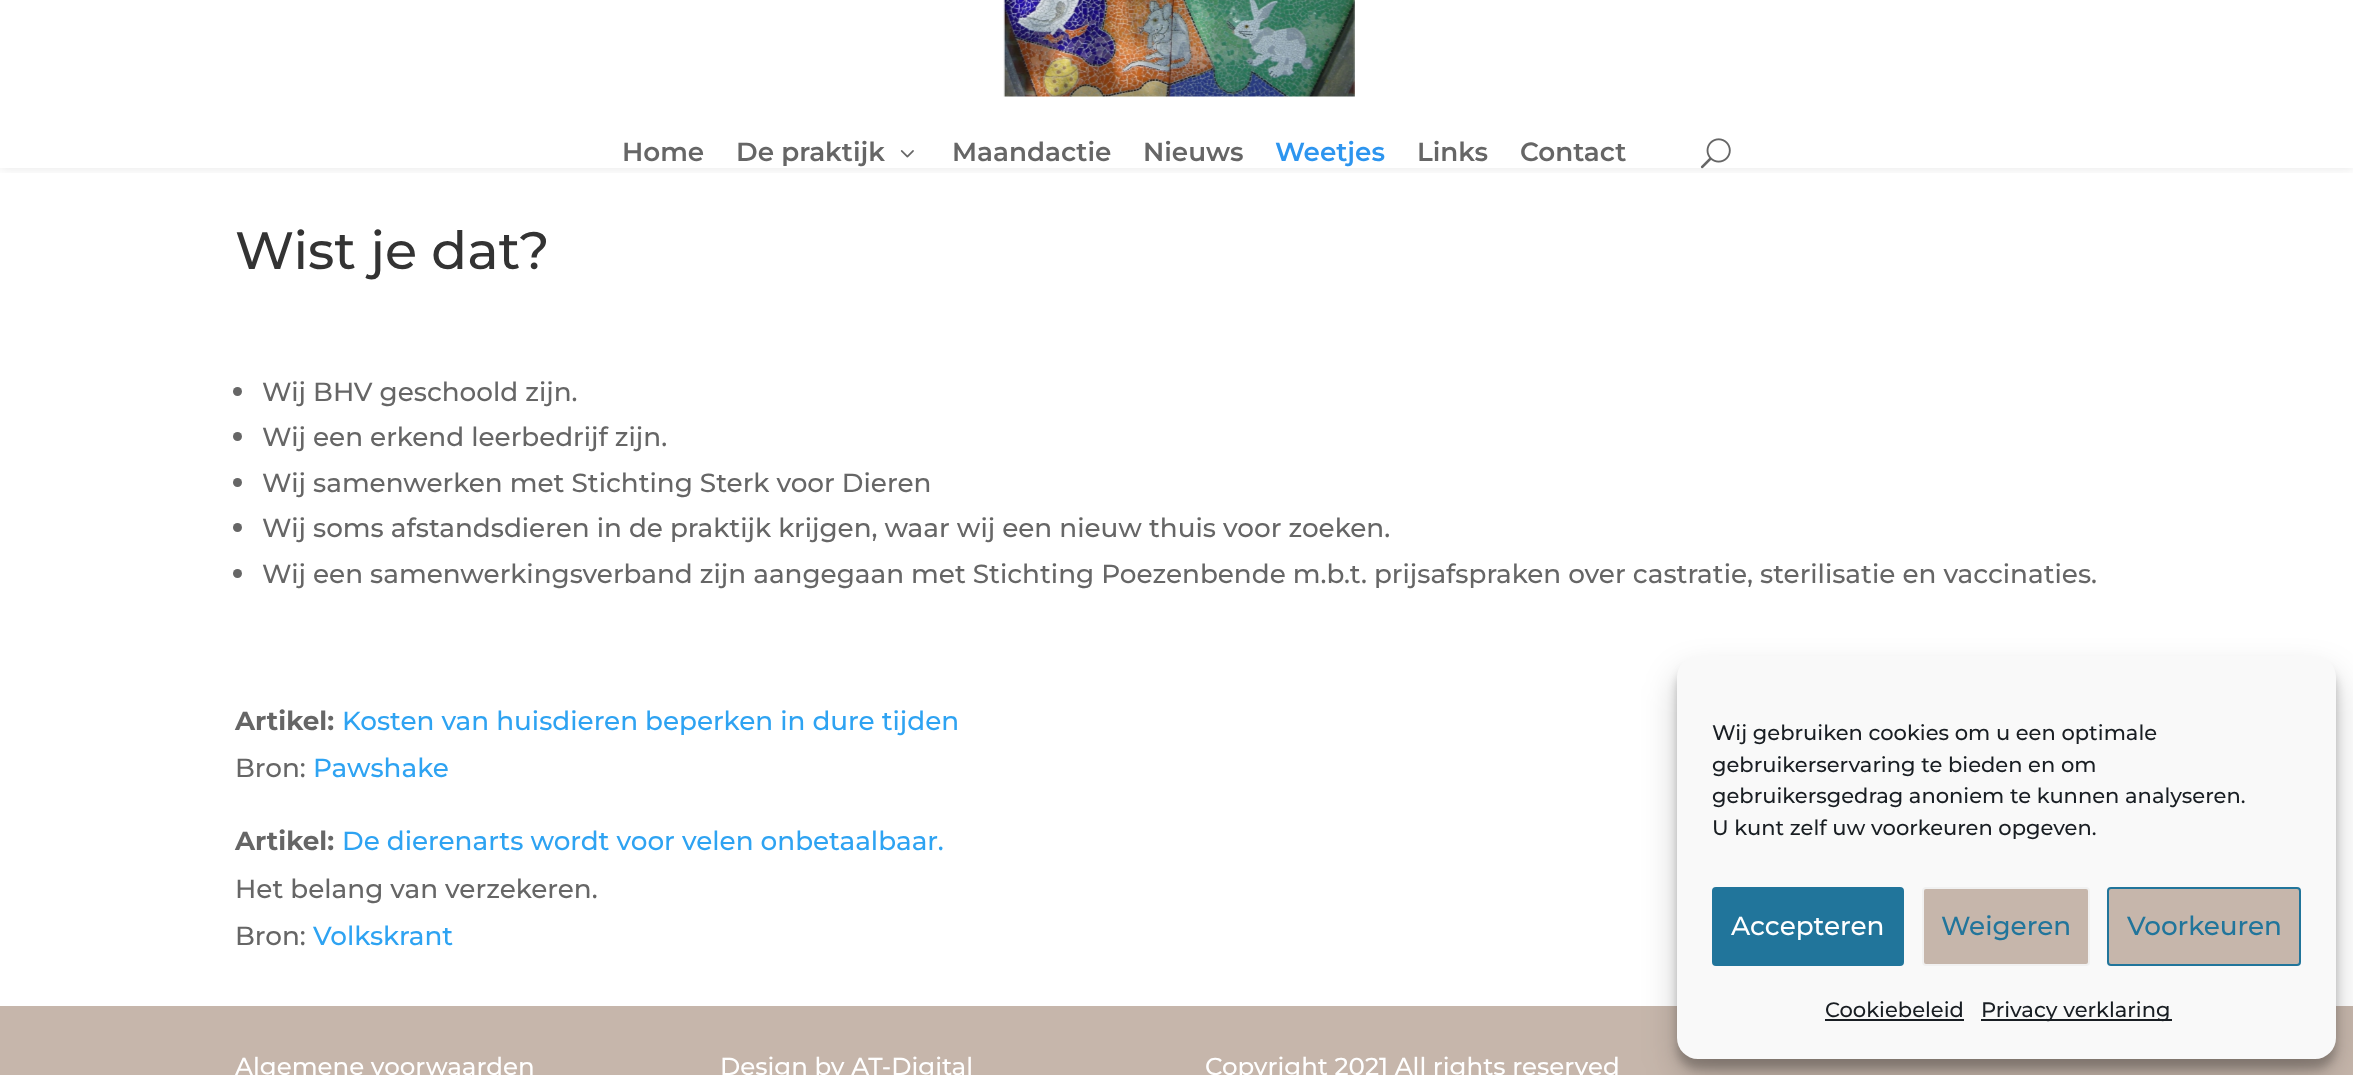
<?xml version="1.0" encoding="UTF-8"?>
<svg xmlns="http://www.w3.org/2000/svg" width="2353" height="1075">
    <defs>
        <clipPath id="clip1"><rect x="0" y="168" width="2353" height="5"/></clipPath>
        <filter id="blur1" x="-50%" y="-200%" width="200%" height="500%"><feGaussianBlur stdDeviation="6"/></filter>
        <filter id="blur2" x="-50%" y="-200%" width="200%" height="500%"><feGaussianBlur stdDeviation="5"/></filter>
        <filter id="blur3" x="-50%" y="-200%" width="200%" height="500%"><feGaussianBlur stdDeviation="17.5"/></filter>
    </defs>
    <rect width="100%" height="100%" fill="#FFFFFF"/>
    <g clip-path="url(#clip1)">
        <rect x="0" y="-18" width="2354" height="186" fill="#000000" fill-opacity="0.1" filter="url(#blur1)"/>
    </g>
    <image x="1003" y="0" width="352" height="97" href="img_01.png"/>
    <text x="622" y="161" font-family="'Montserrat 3'" font-size="26.25" font-weight="100" fill="#666666">Home</text>
    <text x="736" y="161" font-family="'Montserrat 3'" font-size="26.25" font-weight="100" fill="#666666">De praktijk</text>
    <image x="900" y="150" width="14" height="8" href="img_02.png"/>
    <text x="952" y="161" font-family="'Montserrat 3'" font-size="26.25" font-weight="100" fill="#666666">Maandactie</text>
    <text x="1143" y="161" font-family="'Montserrat 3'" font-size="26.25" font-weight="100" fill="#666666">Nieuws</text>
    <text x="1275" y="161" font-family="'Montserrat 3'" font-size="26.25" font-weight="100" fill="#2D95EF">Weetjes</text>
    <text x="1417" y="161" font-family="'Montserrat 3'" font-size="26.25" font-weight="100" fill="#666666">Links</text>
    <text x="1520" y="161" font-family="'Montserrat 3'" font-size="26.25" font-weight="100" fill="#666666">Contact</text>
    <image x="1700" y="138" width="31" height="31" href="img_03.png"/>
    <text x="235" y="269" font-family="Montserrat" font-size="52.5" font-weight="100" fill="#333333">Wist je dat?</text>
    <circle cx="237.5" cy="391.5" r="4.5" fill="#666666"/>
    <text x="262" y="401" font-family="Montserrat" font-size="26.25" font-weight="100" fill="#666666">Wij BHV geschoold zijn.</text>
    <circle cx="237.5" cy="436.5" r="4.5" fill="#666666"/>
    <text x="262" y="446" font-family="Montserrat" font-size="26.25" font-weight="100" fill="#666666">Wij een erkend leerbedrijf zijn.</text>
    <circle cx="237.5" cy="482.5" r="4.5" fill="#666666"/>
    <text x="262" y="492" font-family="Montserrat" font-size="26.25" font-weight="100" fill="#666666">Wij samenwerken met Stichting Sterk voor Dieren</text>
    <circle cx="237.5" cy="527.5" r="4.5" fill="#666666"/>
    <text x="262" y="537" font-family="Montserrat" font-size="26.25" font-weight="100" fill="#666666">Wij soms afstandsdieren in de praktijk krijgen, waar wij een nieuw thuis voor zoeken.</text>
    <circle cx="237.5" cy="573.5" r="4.5" fill="#666666"/>
    <text x="262" y="583" font-family="Montserrat" font-size="26.25" font-weight="100" fill="#666666">Wij een samenwerkingsverband zijn aangegaan met Stichting Poezenbende m.b.t. prijsafspraken over castratie, sterilisatie en vaccinaties.</text>
    <text x="235" y="730" font-family="'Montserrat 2'" font-size="26.25" font-weight="100" fill="#666666">Artikel:</text>
    <text x="342" y="730" font-family="Montserrat" font-size="26.25" font-weight="100" fill="#2EA3F2">Kosten van huisdieren beperken in dure tijden</text>
    <text x="235" y="777" font-family="Montserrat" font-size="26.25" font-weight="100" fill="#666666">Bron:</text>
    <text x="313" y="777" font-family="Montserrat" font-size="26.25" font-weight="100" fill="#2EA3F2">Pawshake</text>
    <text x="235" y="850" font-family="'Montserrat 2'" font-size="26.25" font-weight="100" fill="#666666">Artikel:</text>
    <text x="342" y="850" font-family="Montserrat" font-size="26.25" font-weight="100" fill="#2EA3F2">De dierenarts wordt voor velen onbetaalbaar.</text>
    <text font-family="Montserrat" font-size="26.25" font-weight="100" fill="#666666">
        <tspan x="235" y="898">Het belang van verzekeren.</tspan>
        <tspan x="235" y="945">Bron:</tspan>
    </text>
    <text x="313" y="945" font-family="Montserrat" font-size="26.25" font-weight="100" fill="#2EA3F2">Volkskrant</text>
    <rect x="0" y="1006" width="2353" height="69" fill="#C6B6AB"/>
    <text x="235" y="1075" font-family="Montserrat" font-size="24.5" font-weight="100" fill="#FFFFFF">Algemene voorwaarden</text>
    <text x="720" y="1075" font-family="Montserrat" font-size="24.5" font-weight="100" fill="#FFFFFF">Design by AT-Digital</text>
    <text x="1205" y="1075" font-family="Montserrat" font-size="24.5" font-weight="100" fill="#FFFFFF">Copyright 2021 All rights reserved</text>
    <rect x="1677" y="667" width="659" height="402" rx="21" fill="#000000" fill-opacity="0.23" filter="url(#blur2)"/>
    <rect x="1677" y="674" width="659" height="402" rx="21" fill="#000000" fill-opacity="0.19" filter="url(#blur3)"/>
    <rect x="1677" y="656" width="659" height="403" rx="21" fill="#F9F9F9"/>
    <text font-family="Montserrat" font-size="21" font-weight="100" fill="#191E23">
        <tspan x="1712" y="740">Wij gebruiken cookies om u een optimale</tspan>
        <tspan x="1712" y="772">gebruikerservaring te bieden en om</tspan>
        <tspan x="1712" y="803">gebruikersgedrag anoniem te kunnen analyseren.</tspan>
        <tspan x="1712" y="835">U kunt zelf uw voorkeuren opgeven.</tspan>
    </text>
    <rect x="1713" y="888" width="190" height="77" rx="3" fill="#21759B" stroke="#21759B" stroke-width="2"/>
    <text x="1731" y="935" font-family="Montserrat" font-size="26.25" font-weight="100" fill="#FFFFFF">Accepteren</text>
    <rect x="1923" y="888" width="166" height="77" rx="3" fill="#C6B6AB" stroke="#F1F1F1" stroke-width="2"/>
    <text x="1941" y="935" font-family="Montserrat" font-size="26.25" font-weight="100" fill="#21759B">Weigeren</text>
    <rect x="2108" y="888" width="192" height="77" rx="3" fill="#C6B6AB" stroke="#21759B" stroke-width="2"/>
    <text x="2127" y="935" font-family="Montserrat" font-size="26.25" font-weight="100" fill="#21759B">Voorkeuren</text>
    <text x="1825" y="1017" font-family="Montserrat" font-size="21" font-weight="100" fill="#191E23">Cookiebeleid</text>
    <rect x="1825" y="1019" width="139" height="2" fill="#191E23"/>
    <rect x="1981" y="1019" width="191" height="2" fill="#191E23"/>
    <text x="1981" y="1017" font-family="Montserrat" font-size="21" font-weight="100" fill="#191E23">Privacy verklaring</text>
</svg>
